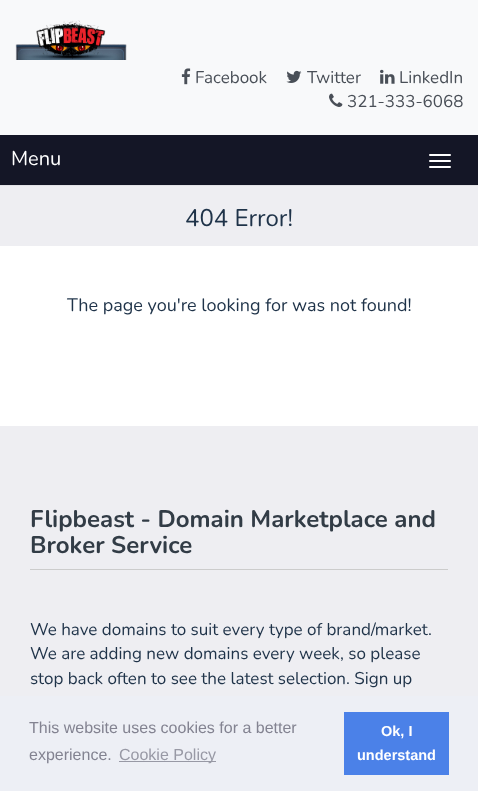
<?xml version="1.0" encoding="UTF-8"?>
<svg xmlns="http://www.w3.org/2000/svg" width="478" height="791">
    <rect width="100%" height="100%" fill="#FFFFFF"/>
    <rect x="0" y="0" width="478" height="135" fill="#F8F9FA"/>
    <image x="15" y="20" width="112" height="40" href="img_01.png"/>
    <image x="181" y="68" width="10" height="17" href="img_02.png"/>
    <text x="195" y="83" font-family="Nunito" font-size="17" fill="#494F57">Facebook</text>
    <image x="286" y="70" width="16" height="13" href="img_03.png"/>
    <text x="307" y="83" font-family="Nunito" font-size="17" fill="#494F57">Twitter</text>
    <image x="380" y="69" width="15" height="15" href="img_04.png"/>
    <text x="399" y="83" font-family="Nunito" font-size="17" fill="#494F57">LinkedIn</text>
    <image x="329" y="93" width="14" height="14" href="img_05.png"/>
    <text x="347" y="107" font-family="Nunito" font-size="17" fill="#494F57">321-333-6068</text>
    <rect x="0" y="135" width="478" height="50" fill="#141626"/>
    <text x="11" y="165" font-family="Nunito" font-size="20" fill="#FFFFFF">Menu</text>
    <rect x="429" y="154" width="22" height="2" rx="1" fill="#FFFFFF"/>
    <rect x="429" y="160" width="22" height="2" rx="1" fill="#FFFFFF"/>
    <rect x="429" y="166" width="22" height="2" rx="1" fill="#FFFFFF"/>
    <rect x="0" y="186" width="478" height="60" fill="#EEEEF2"/>
    <rect x="0" y="185" width="478" height="1" fill="#E2E2E6"/>
    <text x="185" y="226" font-family="Nunito" font-size="24" fill="#1F3349">404 Error!</text>
    <text x="67" y="311" font-family="Nunito" font-size="18" fill="#1F3349">The page you're looking for was not found!</text>
    <rect x="0" y="426" width="478" height="270" fill="#EEEEF2"/>
    <rect x="30" y="569" width="418" height="1" fill="#CCCCCC"/>
    <text font-family="Nunito" font-size="24" font-weight="700" fill="#323C46">
        <tspan x="30" y="527">Flipbeast - Domain Marketplace and</tspan>
        <tspan x="30" y="553">Broker Service</tspan>
    </text>
    <text font-family="Nunito" font-size="17" fill="#1F3349">
        <tspan x="30" y="635">We have domains to suit every type of brand/market.</tspan>
        <tspan x="30" y="659">We are adding new domains every week, so please</tspan>
        <tspan x="30" y="684">stop back often to see the latest selection. Sign up</tspan>
    </text>
    <rect x="0" y="696" width="478" height="95" fill="#EDEFF5"/>
    <text font-family="Liberation Sans" font-size="16" fill="#838391">
        <tspan x="29" y="733">This website uses cookies for a better</tspan>
        <tspan x="29" y="760">experience.</tspan>
    </text>
    <rect x="119" y="761" width="97" height="1" fill="#9899A5"/>
    <text x="119" y="760" font-family="Liberation Sans" font-size="16" fill="#9899A5">Cookie Policy</text>
    <rect x="344" y="712" width="105" height="63" fill="#4B81E8"/>
    <text x="381" y="736" font-family="Liberation Sans" font-size="14.5" font-weight="700" fill="#FFFFFF">Ok, I</text>
    <text x="357" y="760" font-family="Liberation Sans" font-size="14.5" font-weight="700" fill="#FFFFFF">understand</text>
</svg>
